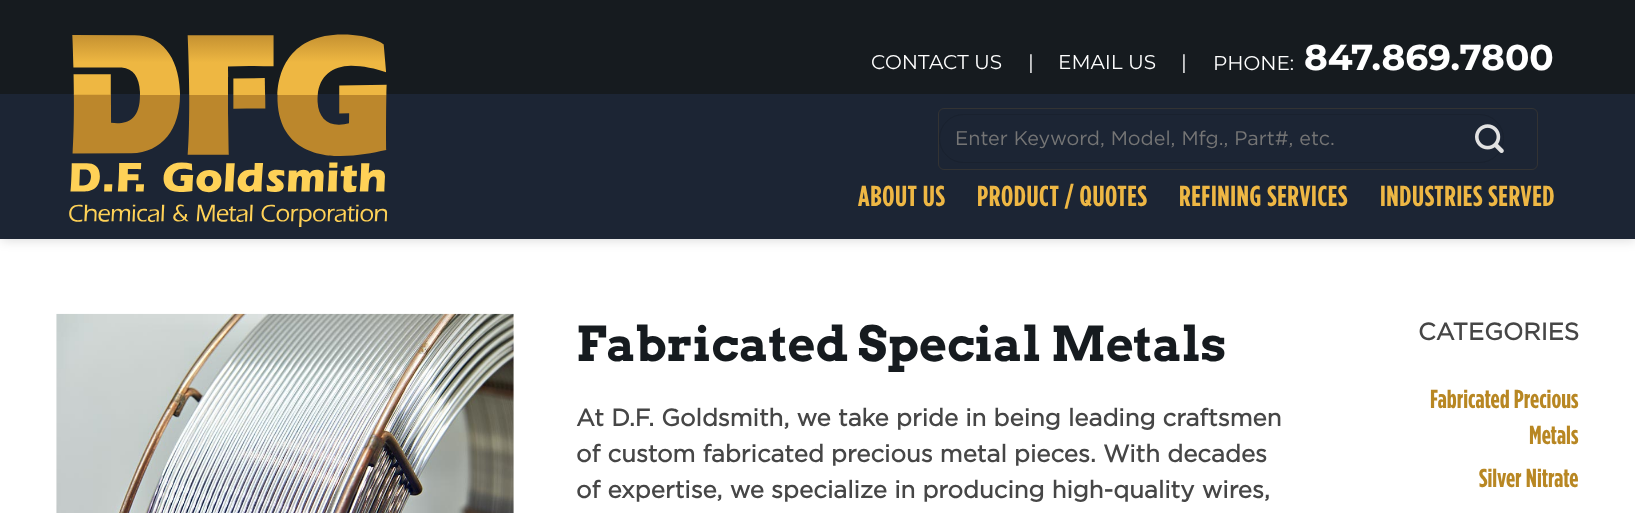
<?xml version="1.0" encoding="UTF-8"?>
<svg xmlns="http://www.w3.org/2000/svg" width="1635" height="513">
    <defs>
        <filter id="blur1" x="-50%" y="-200%" width="200%" height="500%"><feGaussianBlur stdDeviation="6"/></filter>
    </defs>
    <rect width="100%" height="100%" fill="#FFFFFF"/>
    <rect x="1" y="1" width="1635" height="239" fill="#000000" fill-opacity="0.15" filter="url(#blur1)"/>
    <rect x="0" y="0" width="1635" height="94" fill="#161B1F"/>
    <rect x="0" y="94" width="1635" height="145" fill="#1C2534"/>
    <image x="69" y="34" width="319" height="193" href="img_01.png"/>
    <text x="871" y="69" font-family="Montserrat" font-size="20" fill="#FFFFFF">CONTACT US</text>
    <text x="1028" y="69" font-family="Montserrat" font-size="20" fill="#FFFFFF">|</text>
    <text x="1058" y="69" font-family="Montserrat" font-size="20" fill="#FFFFFF">EMAIL US</text>
    <text x="1181" y="69" font-family="Montserrat" font-size="20" fill="#FFFFFF">|</text>
    <text x="1213" y="70" font-family="Montserrat" font-size="20" fill="#FFFFFF">PHONE:</text>
    <text x="1304" y="70" font-family="Montserrat" font-size="36" font-weight="700" fill="#FFFFFF">847.869.7800</text>
    <rect x="938.5" y="108.5" width="599" height="61" rx="5.5" fill="none" stroke="#333333"/>
    <rect x="939.5" y="114.5" width="564" height="48" rx="24" fill="none" stroke="#19212E"/>
    <text x="955" y="145" font-family="Gotham" font-size="19.75" fill="#757575">Enter Keyword, Model, Mfg., Part#, etc.</text>
    <image x="1475" y="124" width="29" height="29" href="img_02.png"/>
    <text x="858" y="206" font-family="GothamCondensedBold" font-size="29" font-weight="700" letter-spacing="0.6" fill="#EEB744">ABOUT US</text>
    <text x="977" y="206" font-family="GothamCondensedBold" font-size="29" font-weight="700" letter-spacing="0.6" fill="#EEB744">PRODUCT / QUOTES</text>
    <text x="1179" y="206" font-family="GothamCondensedBold" font-size="29" font-weight="700" letter-spacing="0.6" fill="#EEB744">REFINING SERVICES</text>
    <text x="1380" y="206" font-family="GothamCondensedBold" font-size="29" font-weight="700" letter-spacing="0.6" fill="#EEB744">INDUSTRIES SERVED</text>
    <image x="56" y="313" width="458" height="200" href="img_03.png"/>
    <text x="576" y="361" font-family="Arvo" font-size="48" font-weight="700" fill="#161B1F">Fabricated Special Metals</text>
    <text font-family="Gotham" font-size="24" font-weight="700" fill="#464646">
        <tspan x="576" y="426">At D.F. Goldsmith, we take pride in being leading craftsmen</tspan>
        <tspan x="576" y="462">of custom fabricated precious metal pieces. With decades</tspan>
        <tspan x="576" y="498">of expertise, we specialize in producing high-quality wires,</tspan>
    </text>
    <text x="1418" y="340" font-family="Gotham" font-size="24" font-weight="700" fill="#464646">CATEGORIES</text>
    <text x="1430" y="408" font-family="GothamCondensedBold" font-size="26" font-weight="700" fill="#B88723">Fabricated Precious</text>
    <text x="1529" y="444" font-family="GothamCondensedBold" font-size="26" font-weight="700" fill="#B88723">Metals</text>
    <text x="1479" y="487" font-family="GothamCondensedBold" font-size="26" font-weight="700" fill="#B88723">Silver Nitrate</text>
</svg>
